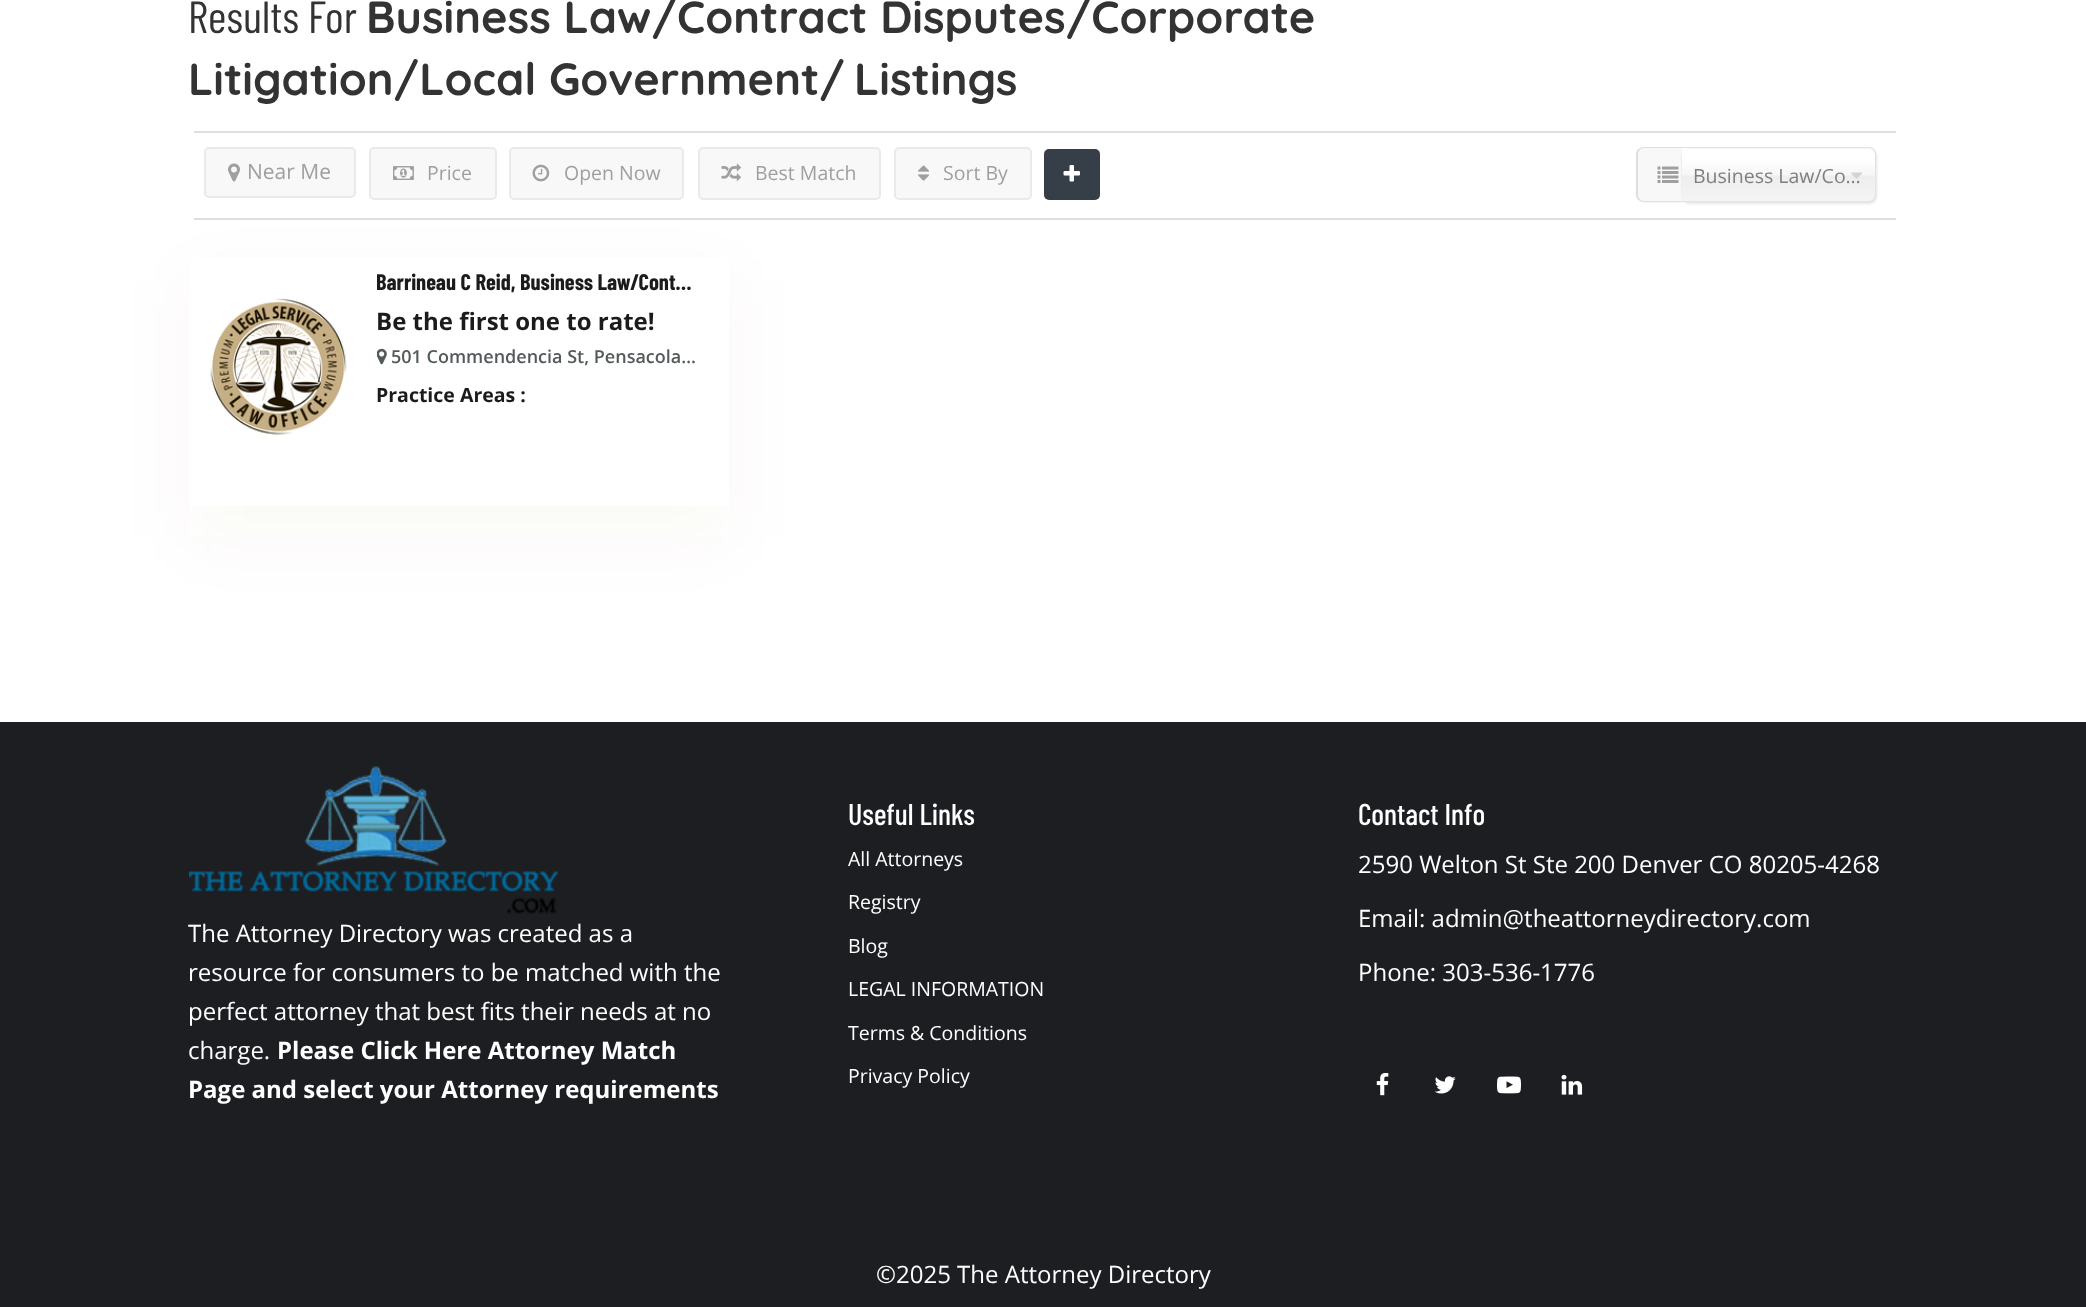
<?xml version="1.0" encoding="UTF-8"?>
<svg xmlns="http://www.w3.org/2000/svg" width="2086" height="1307">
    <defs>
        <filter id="blur1" x="-50%" y="-200%" width="200%" height="500%"><feGaussianBlur stdDeviation="35"/></filter>
        <filter id="blur2" x="-50%" y="-200%" width="200%" height="500%"><feGaussianBlur stdDeviation="1"/></filter>
        <linearGradient id="g1" gradientUnits="userSpaceOnUse" x1="1778" y1="149" x2="1778" y2="201"><stop offset="0.2" stop-color="#FFFFFF"/><stop offset="0.5" stop-color="#F6F6F6"/><stop offset="0.52" stop-color="#EEEEEE"/><stop offset="1" stop-color="#F4F4F4"/></linearGradient>
        <clipPath id="clip1"><rect x="377" y="266" width="322" height="30"/></clipPath>
    </defs>
    <rect width="100%" height="100%" fill="#FFFFFF"/>
    <text x="188" y="33" font-family="Barlow Condensed" font-size="45" fill="#333333">Results For</text>
    <text x="366" y="33" font-family="Quicksand" font-size="45" font-weight="700" fill="#333333">Business Law/Contract Disputes/Corporate</text>
    <text x="188" y="95" font-family="Quicksand" font-size="45" font-weight="700" fill="#333333">Litigation/Local Government/</text>
    <text x="854" y="95" font-family="Quicksand" font-size="45" font-weight="700" fill="#333333">Listings</text>
    <rect x="194" y="131" width="1702" height="2" fill="#DEDEDE"/>
    <rect x="189" y="282" width="540" height="255" fill="#7E4400" fill-opacity="0.04" filter="url(#blur1)"/>
    <rect x="194" y="218" width="1702" height="2" fill="#DEDEDE"/>
    <rect x="205" y="148" width="150" height="49" rx="4" fill="#F8F8F8" stroke="#EAEAEA" stroke-width="2"/>
    <image x="228" y="163" width="12" height="19" href="img_01.png"/>
    <text x="247" y="179" font-family="Open Sans" font-size="21" fill="#9F9F9F">Near Me</text>
    <rect x="370" y="148" width="126" height="51" rx="4" fill="#F8F8F8" stroke="#EAEAEA" stroke-width="2"/>
    <image x="393" y="166" width="21" height="14" href="img_02.png"/>
    <text x="427" y="180" font-family="Open Sans" font-size="19.5" fill="#9F9F9F">Price</text>
    <rect x="510" y="148" width="173" height="51" rx="4" fill="#F8F8F8" stroke="#EAEAEA" stroke-width="2"/>
    <image x="532" y="164" width="18" height="18" href="img_03.png"/>
    <text x="564" y="180" font-family="Open Sans" font-size="19.5" fill="#9F9F9F">Open Now</text>
    <rect x="699" y="148" width="181" height="51" rx="4" fill="#F8F8F8" stroke="#EAEAEA" stroke-width="2"/>
    <image x="721" y="163" width="20" height="18" href="img_04.png"/>
    <text x="755" y="180" font-family="Open Sans" font-size="19.5" fill="#9F9F9F">Best Match</text>
    <rect x="895" y="148" width="136" height="51" rx="4" fill="#F8F8F8" stroke="#EAEAEA" stroke-width="2"/>
    <image x="918" y="165" width="11" height="16" href="img_05.png"/>
    <text x="943" y="180" font-family="Open Sans" font-size="19.5" fill="#9F9F9F">Sort By</text>
    <rect x="1044" y="149" width="56" height="51" rx="5" fill="#363F48"/>
    <image x="1063" y="165" width="17" height="17" href="img_06.png"/>
    <path d="M 1645 147 H 1682 V 203 H 1645 C 1640.5 203 1637 199.5 1637 195 V 155 C 1637 150.5 1640.5 147 1645 147 Z" fill="#F8F8F8"/>
    <path d="M 1644 147 H 1682 V 202 H 1644 C 1640 202 1636 199 1636 195 V 154 C 1636 150 1640 147 1644 147 Z M 1644 148 H 1682 V 201 H 1644 C 1641 201 1638 198 1638 195 V 154 C 1638 151 1641 148 1644 148 Z" fill="#DEDEDE" fill-rule="evenodd"/>
    <image x="1657" y="166" width="22" height="17" href="img_07.png"/>
    <rect x="1682" y="149" width="195" height="55" rx="8" fill="#000000" fill-opacity="0.1" filter="url(#blur2)"/>
    <path d="M 1682 149 H 1869 C 1872.5 149 1875 151.5 1875 155 V 195 C 1875 198.5 1872.5 201 1869 201 H 1682 Z" fill="url(#g1)"/>
    <path d="M 1682 147 H 1869 C 1873 147 1876 150 1876 154 V 195 C 1876 199 1873 202 1869 202 H 1682 Z M 1682 148 H 1869 C 1872 148 1875 151 1875 154 V 195 C 1875 198 1872 201 1869 201 H 1682 Z" fill="#E3E3E3" fill-rule="evenodd"/>
    <text x="1693" y="183" font-family="Open Sans" font-size="19.5" fill="#7F7F7F">Business Law/Co…</text>
    <image x="1851" y="172" width="11" height="7" href="img_08.png"/>
    <rect x="189" y="258" width="540" height="248" fill="#FFFFFF"/>
    <image x="210" y="298" width="137" height="137" href="img_09.png"/>
    <g clip-path="url(#clip1)">
        <text x="376" y="290" font-family="Barlow Condensed" font-size="22.5" font-weight="700" fill="#1A1B1B">Barrineau C Reid, Business Law/Cont…</text>
    </g>
    <text x="376" y="330" font-family="Open Sans" font-size="24" font-weight="700" fill="#1A1B1B">Be the first one to rate!</text>
    <image x="377" y="348" width="10" height="17" href="img_10.png"/>
    <text x="391" y="363" font-family="Open Sans" font-size="18" font-weight="600" fill="#535A5B">501 Commendencia St, Pensacola…</text>
    <text x="376" y="402" font-family="Open Sans" font-size="19.5" font-weight="700" fill="#1A1B1B">Practice Areas :</text>
    <rect x="0" y="722" width="2086" height="585" fill="#1D1E22"/>
    <text x="848" y="825" font-family="Barlow Condensed" font-size="30" font-weight="500" fill="#FFFFFF">Useful Links</text>
    <text x="848" y="866" font-family="Open Sans" font-size="19.5" fill="#FFFFFF">All Attorneys</text>
    <text x="848" y="909" font-family="Open Sans" font-size="19.5" fill="#FFFFFF">Registry</text>
    <text x="848" y="953" font-family="Open Sans" font-size="19.5" fill="#FFFFFF">Blog</text>
    <text x="848" y="996" font-family="Open Sans" font-size="19.5" fill="#FFFFFF">LEGAL INFORMATION</text>
    <text x="848" y="1040" font-family="Open Sans" font-size="19.5" fill="#FFFFFF">Terms &amp; Conditions</text>
    <text x="848" y="1083" font-family="Open Sans" font-size="19.5" fill="#FFFFFF">Privacy Policy</text>
    <text x="1358" y="825" font-family="Barlow Condensed" font-size="30" font-weight="500" fill="#FFFFFF">Contact Info</text>
    <text x="1358" y="873" font-family="Open Sans" font-size="24" fill="#FFFFFF">2590 Welton St Ste 200 Denver CO 80205-4268</text>
    <text x="1358" y="927" font-family="Open Sans" font-size="24" fill="#FFFFFF">Email: admin@theattorneydirectory.com</text>
    <text x="1358" y="981" font-family="Open Sans" font-size="24" fill="#FFFFFF">Phone: 303-536-1776</text>
    <image x="1376" y="1072" width="13" height="24" href="img_11.png"/>
    <image x="1434" y="1076" width="22" height="18" href="img_12.png"/>
    <image x="1497" y="1076" width="24" height="18" href="img_13.png"/>
    <image x="1561" y="1074" width="22" height="21" href="img_14.png"/>
    <image x="189" y="766" width="369" height="148" href="img_15.png"/>
    <text font-family="Open Sans" font-size="24" fill="#FFFFFF">
        <tspan x="188" y="942">The Attorney Directory was created as a</tspan>
        <tspan x="188" y="981">resource for consumers to be matched with the</tspan>
        <tspan x="188" y="1020">perfect attorney that best fits their needs at no</tspan>
        <tspan x="188" y="1059">charge.</tspan>
    </text>
    <text x="277" y="1059" font-family="Open Sans" font-size="24" font-weight="700" fill="#FFFFFF">Please Click Here Attorney Match</text>
    <text x="188" y="1098" font-family="Open Sans" font-size="24" font-weight="700" fill="#FFFFFF">Page and select your Attorney requirements</text>
    <text x="876" y="1283" font-family="Open Sans" font-size="24" fill="#FFFFFF">©2025 The Attorney Directory</text>
</svg>
